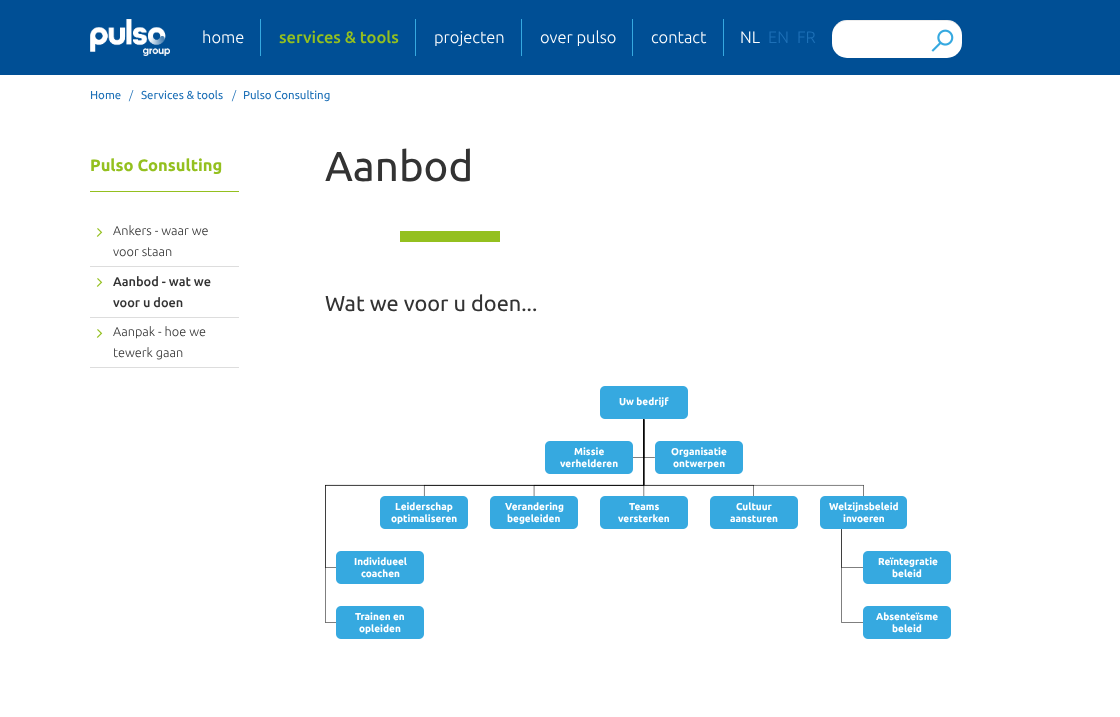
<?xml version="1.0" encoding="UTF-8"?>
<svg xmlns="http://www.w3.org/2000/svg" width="1120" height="717">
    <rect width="100%" height="100%" fill="#FFFFFF"/>
    <rect x="0" y="0" width="1120" height="75" fill="#004F95"/>
    <image x="90" y="19" width="80" height="37" href="img_01.png"/>
    <text x="202" y="43" font-family="Ubuntu" font-size="16.5" font-weight="300" fill="#FFFFFF">home</text>
    <rect x="260" y="19" width="1" height="37" fill="#36A9E0"/>
    <text x="279" y="43" font-family="Ubuntu" font-size="16.5" font-weight="500" fill="#94C01F">services &amp; tools</text>
    <rect x="415" y="19" width="1" height="37" fill="#36A9E0"/>
    <text x="434" y="43" font-family="Ubuntu" font-size="16.5" font-weight="300" fill="#FFFFFF">projecten</text>
    <rect x="521" y="19" width="1" height="37" fill="#36A9E0"/>
    <text x="540" y="43" font-family="Ubuntu" font-size="16.5" font-weight="300" fill="#FFFFFF">over pulso</text>
    <rect x="632" y="19" width="1" height="37" fill="#36A9E0"/>
    <text x="651" y="43" font-family="Ubuntu" font-size="16.5" font-weight="300" fill="#FFFFFF">contact</text>
    <rect x="723" y="19" width="1" height="37" fill="#36A9E0"/>
    <text x="740" y="43" font-family="Ubuntu" font-size="16.5" font-weight="300" fill="#FFFFFF">NL</text>
    <text x="768" y="43" font-family="Ubuntu" font-size="16.5" font-weight="300" fill="#1D70B7">EN</text>
    <text x="797" y="43" font-family="Ubuntu" font-size="16.5" font-weight="300" fill="#1D70B7">FR</text>
    <rect x="832" y="20" width="130" height="38" rx="15" fill="#FFFFFF"/>
    <path d="M 847 21 H 947 C 955 21 962 28 962 36 C 962 17 944 20 930 20 H 864 C 850 20 832 17 832 36 C 832 28 839 21 847 21 Z" fill="#000000" fill-opacity="0.07"/>
    <image x="931" y="29" width="23" height="23" href="img_02.png"/>
    <text x="90" y="99" font-family="Ubuntu" font-size="11.5" fill="#1D70B7">Home</text>
    <text x="129" y="99" font-family="Ubuntu" font-size="11.5" font-weight="300" fill="#1D70B7">/</text>
    <text x="141" y="99" font-family="Ubuntu" font-size="11.5" fill="#1D70B7">Services &amp; tools</text>
    <text x="232" y="99" font-family="Ubuntu" font-size="11.5" font-weight="300" fill="#1D70B7">/</text>
    <text x="243" y="99" font-family="Ubuntu" font-size="11.5" fill="#1D70B7">Pulso Consulting</text>
    <rect x="90" y="191" width="149" height="1" fill="#94C01F"/>
    <text x="90" y="171" font-family="Ubuntu" font-size="16.5" font-weight="700" fill="#94C01F">Pulso Consulting</text>
    <rect x="90" y="266" width="149" height="1" fill="#DDDDDD"/>
    <image x="96" y="228" width="7" height="9" href="img_03.png"/>
    <text font-family="Ubuntu" font-size="12.75" font-weight="300" fill="#333333">
        <tspan x="113" y="235">Ankers - waar we</tspan>
        <tspan x="113" y="256">voor staan</tspan>
    </text>
    <rect x="90" y="317" width="149" height="1" fill="#DDDDDD"/>
    <image x="96" y="278" width="7" height="9" href="img_03.png"/>
    <text font-family="Ubuntu" font-size="12.75" font-weight="500" fill="#333333">
        <tspan x="113" y="286">Aanbod - wat we</tspan>
        <tspan x="113" y="307">voor u doen</tspan>
    </text>
    <rect x="90" y="367" width="149" height="1" fill="#DDDDDD"/>
    <image x="96" y="329" width="7" height="9" href="img_03.png"/>
    <text font-family="Ubuntu" font-size="12.75" font-weight="300" fill="#333333">
        <tspan x="113" y="336">Aanpak - hoe we</tspan>
        <tspan x="113" y="357">tewerk gaan</tspan>
    </text>
    <text x="325" y="181" font-family="Ubuntu" font-size="42" fill="#333333">Aanbod</text>
    <rect x="400" y="231" width="100" height="11" fill="#94C01F"/>
    <text x="325" y="311" font-family="Ubuntu" font-size="21.75" fill="#333333">Wat we voor u doen...</text>
    <image x="325" y="386" width="626" height="253" href="img_04.png"/>
    <text x="619" y="405" font-family="Ubuntu" font-size="10" font-weight="700" fill="#FFFFFF">Uw bedrijf</text>
    <text x="574" y="455" font-family="Ubuntu" font-size="10" font-weight="700" fill="#FFFFFF">Missie</text>
    <text x="671" y="455" font-family="Ubuntu" font-size="10" font-weight="700" fill="#FFFFFF">Organisatie</text>
    <text x="560" y="467" font-family="Ubuntu" font-size="10" font-weight="700" fill="#FFFFFF">verhelderen</text>
    <text x="673" y="467" font-family="Ubuntu" font-size="10" font-weight="700" fill="#FFFFFF">ontwerpen</text>
    <text x="395" y="510" font-family="Ubuntu" font-size="10" font-weight="700" fill="#FFFFFF">Leiderschap</text>
    <text x="505" y="510" font-family="Ubuntu" font-size="10" font-weight="700" fill="#FFFFFF">Verandering</text>
    <text x="629" y="510" font-family="Ubuntu" font-size="10" font-weight="700" fill="#FFFFFF">Teams</text>
    <text x="736" y="510" font-family="Ubuntu" font-size="10" font-weight="700" fill="#FFFFFF">Cultuur</text>
    <text x="829" y="510" font-family="Ubuntu" font-size="10" font-weight="700" fill="#FFFFFF">Welzijnsbeleid</text>
    <text x="391" y="522" font-family="Ubuntu" font-size="10" font-weight="700" fill="#FFFFFF">optimaliseren</text>
    <text x="507" y="522" font-family="Ubuntu" font-size="10" font-weight="700" fill="#FFFFFF">begeleiden</text>
    <text x="618" y="522" font-family="Ubuntu" font-size="10" font-weight="700" fill="#FFFFFF">versterken</text>
    <text x="730" y="522" font-family="Ubuntu" font-size="10" font-weight="700" fill="#FFFFFF">aansturen</text>
    <text x="843" y="522" font-family="Ubuntu" font-size="10" font-weight="700" fill="#FFFFFF">invoeren</text>
    <text x="354" y="565" font-family="Ubuntu" font-size="10" font-weight="700" fill="#FFFFFF">Individueel</text>
    <text x="878" y="565" font-family="Ubuntu" font-size="10" font-weight="700" fill="#FFFFFF">Reïntegratie</text>
    <text x="361" y="577" font-family="Ubuntu" font-size="10" font-weight="700" fill="#FFFFFF">coachen</text>
    <text x="892" y="577" font-family="Ubuntu" font-size="10" font-weight="700" fill="#FFFFFF">beleid</text>
    <text x="355" y="620" font-family="Ubuntu" font-size="10" font-weight="700" fill="#FFFFFF">Trainen en</text>
    <text x="876" y="620" font-family="Ubuntu" font-size="10" font-weight="700" fill="#FFFFFF">Absenteïsme</text>
    <text x="359" y="632" font-family="Ubuntu" font-size="10" font-weight="700" fill="#FFFFFF">opleiden</text>
    <text x="892" y="632" font-family="Ubuntu" font-size="10" font-weight="700" fill="#FFFFFF">beleid</text>
</svg>
